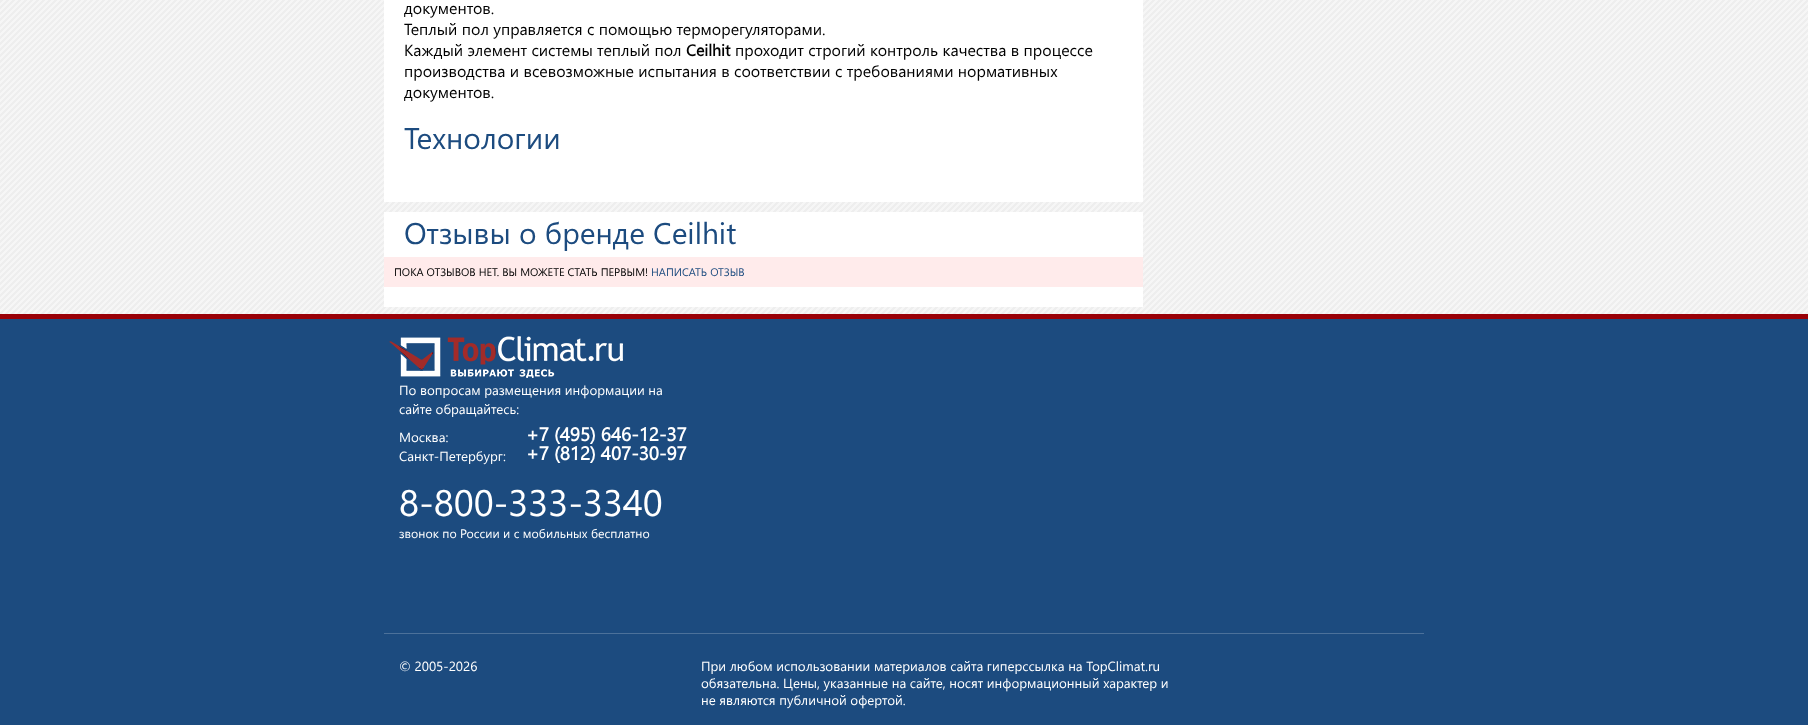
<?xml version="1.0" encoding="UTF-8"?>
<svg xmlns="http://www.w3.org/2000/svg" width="1808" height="725">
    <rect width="100%" height="100%" fill="#1C4B7F"/>
    <rect x="0" y="0" width="1808" height="314" fill="#F6F6F6"/>
    <image x="0" y="0" width="1808" height="314" href="img_01.png"/>
    <rect x="384" y="0" width="759" height="202" fill="#FFFFFF"/>
    <text font-family="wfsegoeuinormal" font-size="16" fill="#000000">
        <tspan x="404" y="14">документов.</tspan>
        <tspan x="404" y="35">Теплый пол управляется с помощью терморегуляторами.</tspan>
        <tspan x="404" y="56">Каждый элемент системы теплый пол</tspan>
    </text>
    <text x="686" y="56" font-family="wfsegoeuinormal" font-size="16" font-weight="700" fill="#000000">Ceilhit</text>
    <text x="735" y="56" font-family="wfsegoeuinormal" font-size="16" fill="#000000">проходит строгий контроль качества в процессе</text>
    <text font-family="wfsegoeuinormal" font-size="16" fill="#000000">
        <tspan x="404" y="77">производства и всевозможные испытания в соответствии с требованиями нормативных</tspan>
        <tspan x="404" y="98">документов.</tspan>
    </text>
    <text x="404" y="149" font-family="wfsegoeuinormal" font-size="30" fill="#1C4B7F">Технологии</text>
    <rect x="384" y="212" width="759" height="95" fill="#FFFFFF"/>
    <text x="404" y="244" font-family="wfsegoeuinormal" font-size="30" fill="#1C4B7F">Отзывы о бренде Ceilhit</text>
    <rect x="384" y="257" width="759" height="30" fill="#FFEBEB"/>
    <text x="394" y="276" font-family="wfsegoeuinormal" font-size="11" fill="#000000">ПОКА ОТЗЫВОВ НЕТ. ВЫ МОЖЕТЕ СТАТЬ ПЕРВЫМ!</text>
    <text x="651" y="276" font-family="wfsegoeuinormal" font-size="11" fill="#1C4B7F">НАПИСАТЬ ОТЗЫВ</text>
    <rect x="0" y="314" width="1808" height="5" fill="#990007"/>
    <rect x="384" y="633" width="1040" height="1" fill="#4C719A"/>
    <image x="389" y="336" width="234" height="42" href="img_02.png"/>
    <text font-family="wfsegoeuinormal" font-size="13.35" fill="#FFFFFF">
        <tspan x="399" y="395">По вопросам размещения информации на</tspan>
        <tspan x="399" y="414">сайте обращайтесь:</tspan>
    </text>
    <text x="399" y="442" font-family="wfsegoeuinormal" font-size="13.35" fill="#FFFFFF">Москва:</text>
    <text x="526" y="441" font-family="wfsegoeuinormal" font-size="18.75" font-weight="700" fill="#FFFFFF">+7 (495) 646-12-37</text>
    <text x="399" y="461" font-family="wfsegoeuinormal" font-size="13.35" fill="#FFFFFF">Санкт-Петербург:</text>
    <text x="526" y="460" font-family="wfsegoeuinormal" font-size="18.75" font-weight="700" fill="#FFFFFF">+7 (812) 407-30-97</text>
    <text x="399" y="516" font-family="wfsegoeuinormal" font-size="37" fill="#FFFFFF">8-800-333-3340</text>
    <text x="399" y="538" font-family="wfsegoeuinormal" font-size="12.4" fill="#FFFFFF">звонок по России и с мобильных бесплатно</text>
    <text x="399" y="671" font-family="wfsegoeuinormal" font-size="13.35" fill="#FFFFFF">© 2005-2026</text>
    <text font-family="wfsegoeuinormal" font-size="13.35" fill="#FFFFFF">
        <tspan x="701" y="671">При любом использовании материалов сайта гиперссылка на TopClimat.ru</tspan>
        <tspan x="701" y="688">обязательна. Цены, указанные на сайте, носят информационный характер и</tspan>
        <tspan x="701" y="705">не являются публичной офертой.</tspan>
    </text>
</svg>
